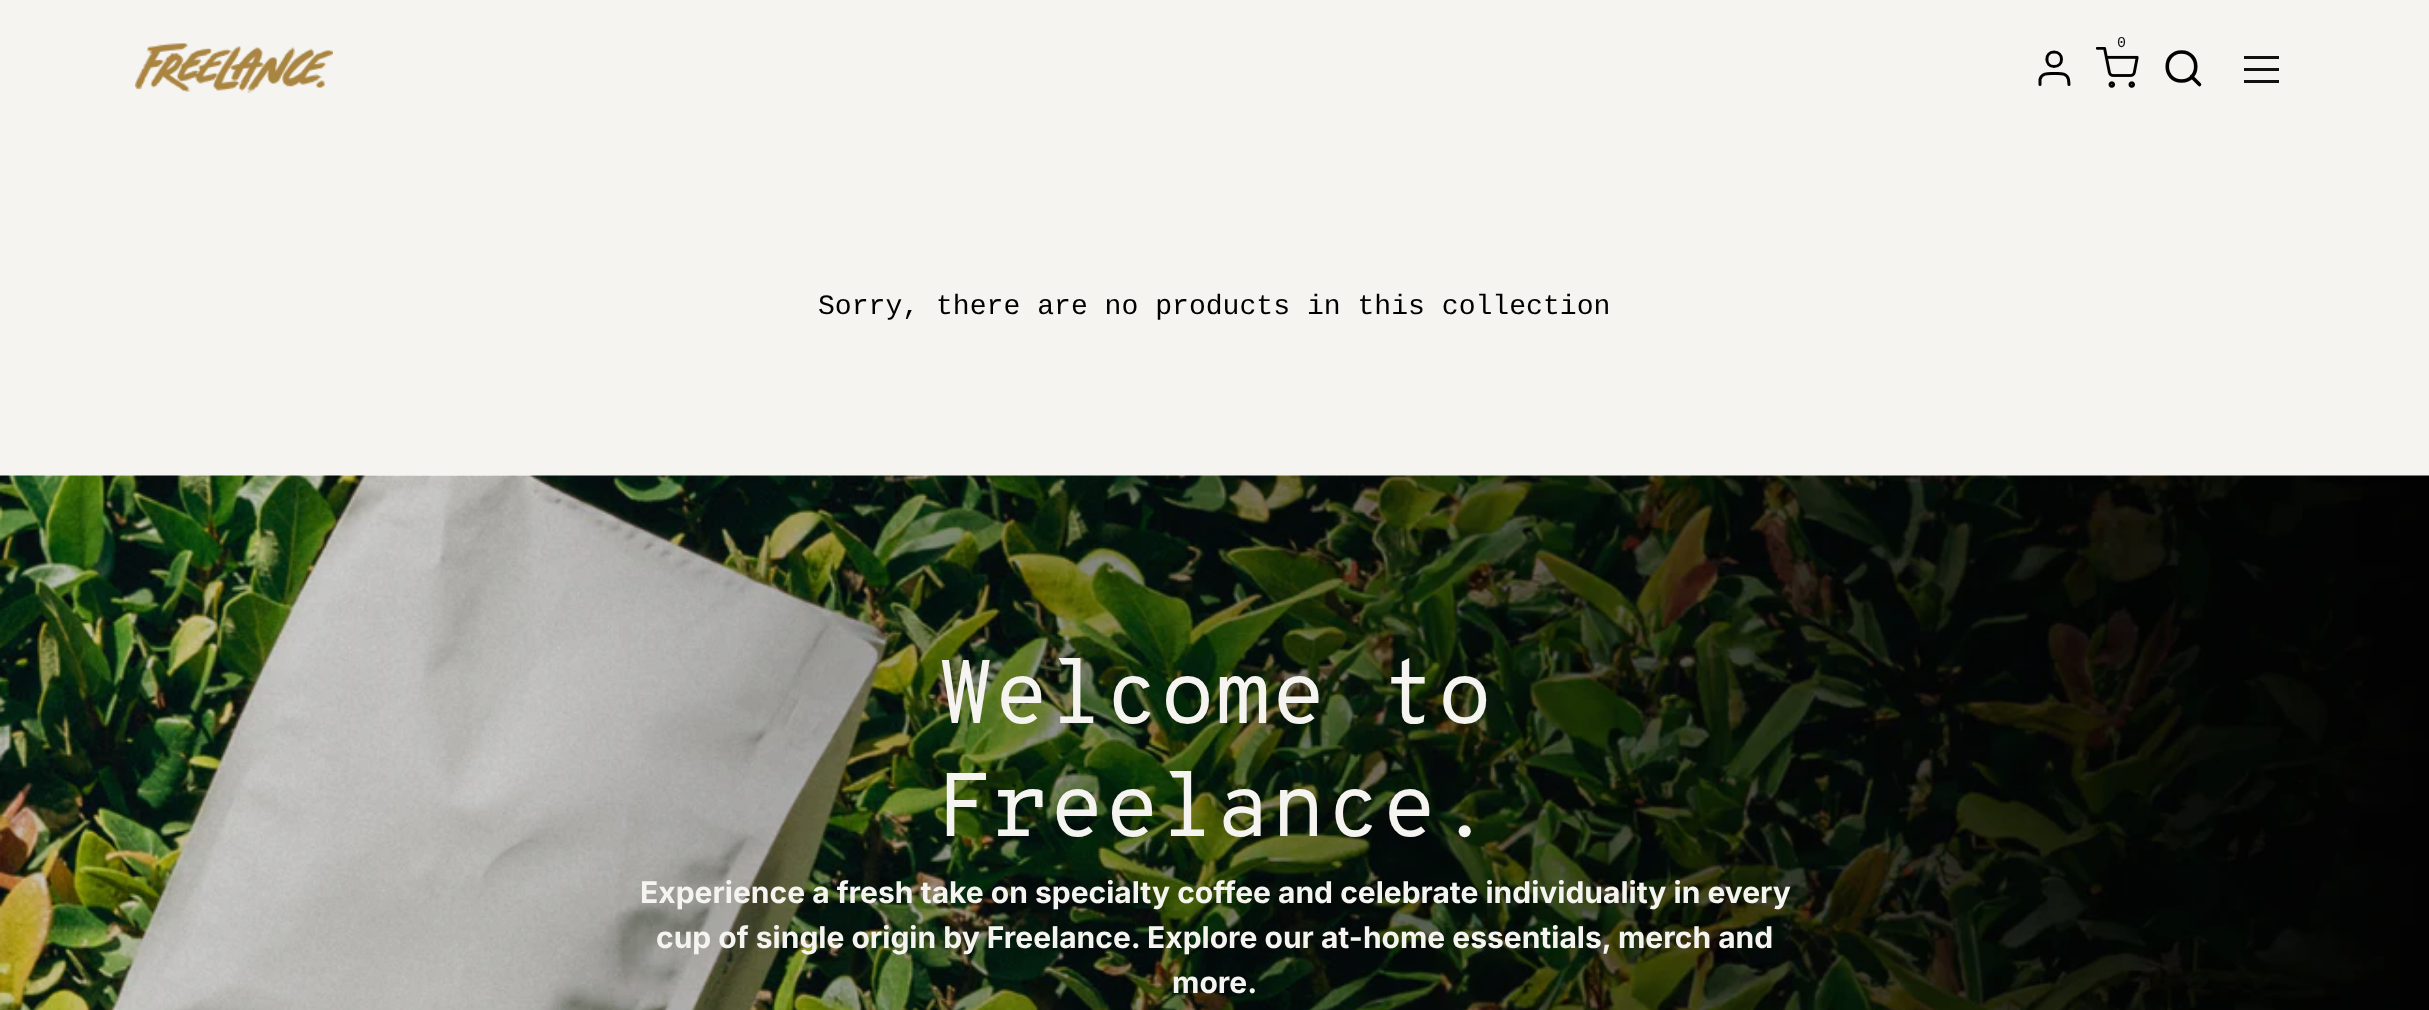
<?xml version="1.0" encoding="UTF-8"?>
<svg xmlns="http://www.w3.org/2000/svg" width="2429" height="1010">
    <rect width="100%" height="100%" fill="#F5F4F0"/>
    <image x="135" y="43" width="198" height="50" href="img_01.png"/>
    <image x="2096" y="47" width="43" height="41" href="img_02.png"/>
    <text x="2117" y="47" font-family="Liberation Mono" font-size="15" fill="#111111">0</text>
    <path d="M 2069 84.5 L 2068.5 79.5 C 2067 72.5 2059.5 73.5 2054.5 73.5 C 2049 73.5 2041.5 72.5 2040 79.5 V 84.5 M 2054 66.5 C 2064 66.5 2064 52 2054 52 C 2044.5 52 2044.5 66.5 2054 66.5 Z" fill="none" stroke="#000000" stroke-width="3" stroke-linecap="round" stroke-linejoin="round"/>
    <path d="M 2181.5 81 C 2200.5 81 2200.5 52 2181.5 52 C 2162.5 52 2162.5 81 2181.5 81 Z M 2199.5 84.5 L 2191.5 76.5" fill="none" stroke="#000000" stroke-width="3.6" stroke-linecap="round" stroke-linejoin="round"/>
    <rect x="2244" y="56" width="35" height="3" fill="#111111"/>
    <rect x="2244" y="68" width="35" height="3" fill="#111111"/>
    <rect x="2244" y="80" width="35" height="3" fill="#111111"/>
    <text x="818" y="314" font-family="Liberation Mono" font-size="28.1" fill="#000000">Sorry, there are no products in this collection</text>
    <image x="0" y="475" width="2429" height="535" href="img_03.png"/>
    <text font-family="Overpass Mono" font-size="90" fill="#F5F4F0">
        <tspan x="938" y="723">Welcome to</tspan>
        <tspan x="938" y="836">Freelance.</tspan>
    </text>
    <text x="640" y="903" font-family="Inter" font-size="30" font-weight="700" fill="#F5F4F0">Experience a fresh take on specialty coffee and celebrate individuality in every</text>
    <text x="656" y="948" font-family="Inter" font-size="30" font-weight="700" fill="#F5F4F0">cup of single origin by Freelance. Explore our at-home essentials, merch and</text>
    <text x="1172" y="993" font-family="Inter" font-size="30" font-weight="700" fill="#F5F4F0">more.</text>
</svg>
